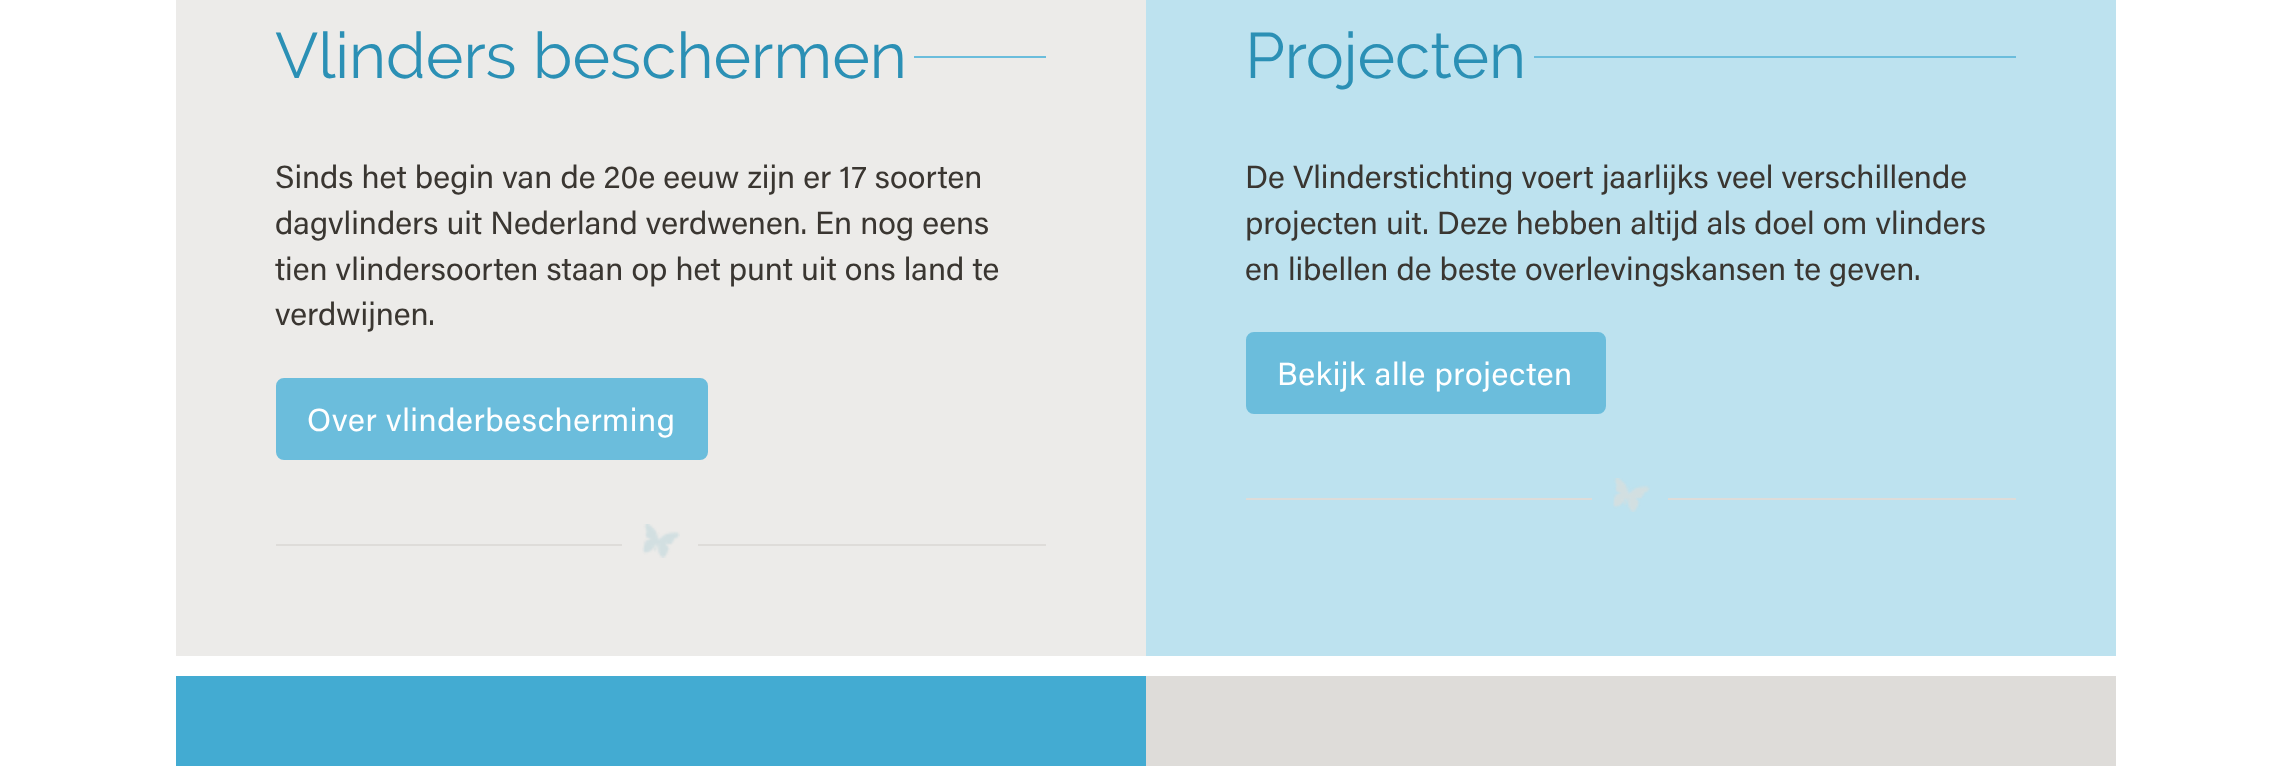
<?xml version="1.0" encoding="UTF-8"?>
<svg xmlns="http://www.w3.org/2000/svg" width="2289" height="766">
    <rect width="100%" height="100%" fill="#FFFFFF"/>
    <rect x="176" y="0" width="970" height="656" fill="#ECEBE9"/>
    <text x="275" y="78" font-family="Raleway" font-size="64" fill="#2B90B5">Vlinders beschermen</text>
    <rect x="914" y="56" width="132" height="2" fill="#6BBDDC"/>
    <text font-family="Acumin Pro" font-size="32" fill="#3A3631">
        <tspan x="275" y="188">Sinds het begin van de 20e eeuw zijn er 17 soorten</tspan>
        <tspan x="275" y="234">dagvlinders uit Nederland verdwenen. En nog eens</tspan>
        <tspan x="275" y="280">tien vlindersoorten staan op het punt uit ons land te</tspan>
        <tspan x="275" y="325">verdwijnen.</tspan>
    </text>
    <rect x="277" y="379" width="430" height="80" rx="7" fill="#6BBDDC" stroke="#6BBDDC" stroke-width="2"/>
    <text x="307" y="431" font-family="Acumin Pro" font-size="32" letter-spacing="0.6" fill="#FFFFFF">Over vlinderbescherming</text>
    <image x="642" y="524" width="38" height="34" href="img_01.png"/>
    <rect x="276" y="544" width="346" height="2" fill="#DEDCD9"/>
    <rect x="698" y="544" width="348" height="2" fill="#DEDCD9"/>
    <rect x="1146" y="0" width="970" height="656" fill="#BDE2EF"/>
    <text x="1245" y="78" font-family="Raleway" font-size="64" fill="#2B90B5">Projecten</text>
    <rect x="1534" y="56" width="482" height="2" fill="#6BBDDC"/>
    <text font-family="Acumin Pro" font-size="32" fill="#3A3631">
        <tspan x="1245" y="188">De Vlinderstichting voert jaarlijks veel verschillende</tspan>
        <tspan x="1245" y="234">projecten uit. Deze hebben altijd als doel om vlinders</tspan>
        <tspan x="1245" y="280">en libellen de beste overlevingskansen te geven.</tspan>
    </text>
    <rect x="1247" y="333" width="358" height="80" rx="7" fill="#6BBDDC" stroke="#6BBDDC" stroke-width="2"/>
    <text x="1277" y="385" font-family="Acumin Pro" font-size="32" letter-spacing="0.6" fill="#FFFFFF">Bekijk alle projecten</text>
    <image x="1613" y="478" width="37" height="34" href="img_02.png"/>
    <rect x="1246" y="498" width="346" height="2" fill="#DEDCD9"/>
    <rect x="1668" y="498" width="348" height="2" fill="#DEDCD9"/>
    <rect x="176" y="676" width="970" height="90" fill="#43ABD2"/>
    <rect x="1146" y="676" width="970" height="90" fill="#DEDCD9"/>
</svg>
